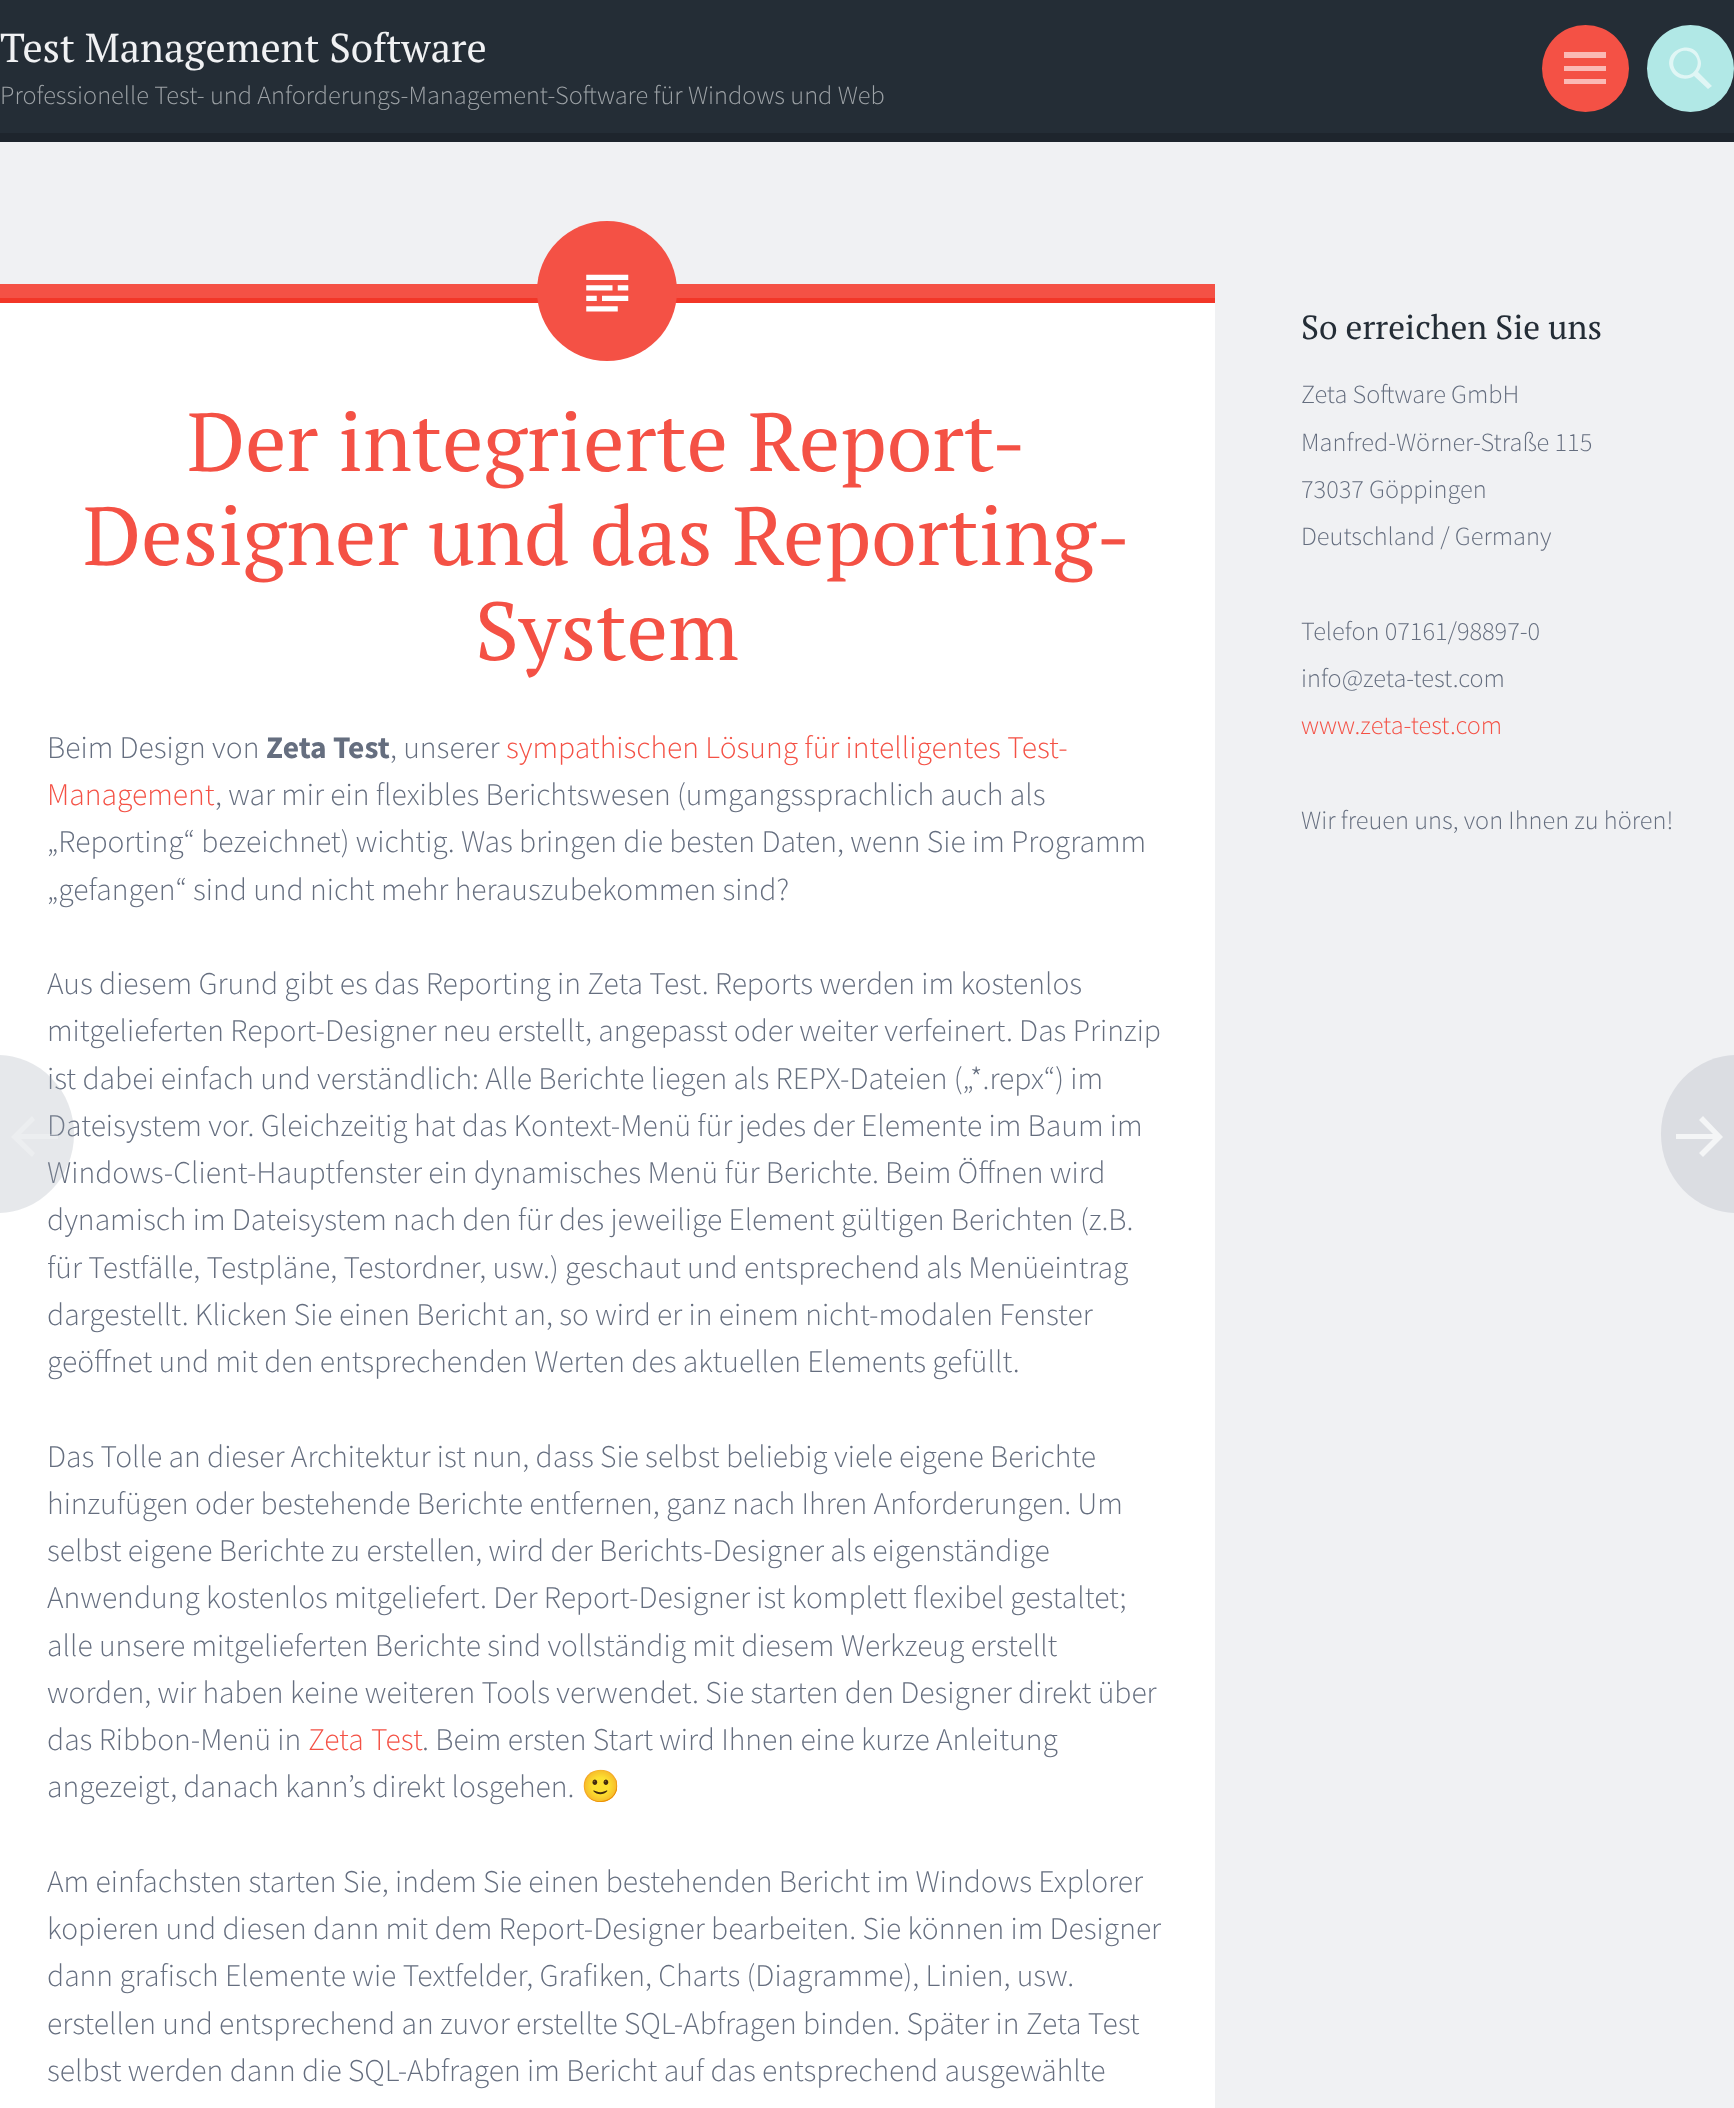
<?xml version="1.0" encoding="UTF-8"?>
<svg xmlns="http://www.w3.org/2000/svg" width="1734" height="2108">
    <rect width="100%" height="100%" fill="#F0F1F3"/>
    <rect x="0" y="0" width="1734" height="133" fill="#242D36"/>
    <rect x="0" y="133" width="1734" height="9" fill="#1E252D"/>
    <text x="0" y="62" font-family="PT Serif" font-size="40.25" fill="#F0F1F3">Test Management Software</text>
    <text x="0" y="104" font-family="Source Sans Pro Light" font-size="26.25" font-weight="300" fill="#9EA3A7">Professionelle Test- und Anforderungs-Management-Software für Windows und Web</text>
    <circle cx="1585.5" cy="68.5" r="43.5" fill="#F45145"/>
    <path d="M 1564 84 V 79 H 1606 V 84 Z M 1564 52 H 1606 V 58 H 1564 Z M 1564 71 V 66 H 1606 V 71 Z" fill="#FBB9B5"/>
    <circle cx="1690.5" cy="68.5" r="43.5" fill="#B1E8E6"/>
    <path d="M 1712 86 L 1708 89 L 1694 76 C 1687 81 1675 79 1671 70 C 1661 50 1695 37 1700 59 C 1702 63 1701 68 1698 72 Z M 1675 57 C 1667 71 1688 83 1696 69 C 1704 55 1683 43 1675 57 Z" fill="#E0F6F5"/>
    <rect x="0" y="303" width="1215" height="1805" fill="#FFFFFF"/>
    <rect x="0" y="284" width="1215" height="14" fill="#F45145"/>
    <rect x="0" y="298" width="1215" height="5" fill="#F23628"/>
    <circle cx="607" cy="291" r="70" fill="#F45145"/>
    <image x="586" y="274" width="43" height="38" href="img_01.png"/>
    <text x="187" y="471" font-family="PT Serif" font-size="82.25" fill="#F45145">Der integrierte Report-</text>
    <text x="83" y="565" font-family="PT Serif" font-size="82.25" fill="#F45145">Designer und das Reporting-</text>
    <text x="475" y="660" font-family="PT Serif" font-size="82.25" fill="#F45145">System</text>
    <text x="47" y="758" font-family="Source Sans Pro Light" font-size="31.5" font-weight="300" fill="#656E7F">Beim Design von</text>
    <text x="266" y="758" font-family="Source Sans Pro" font-size="31.5" font-weight="700" fill="#656E7F">Zeta Test</text>
    <text x="390" y="758" font-family="Source Sans Pro Light" font-size="31.5" font-weight="300" fill="#656E7F">, unserer</text>
    <text x="506" y="758" font-family="Source Sans Pro Light" font-size="31.5" font-weight="300" fill="#F45145">sympathischen Lösung für intelligentes Test-</text>
    <text x="47" y="805" font-family="Source Sans Pro Light" font-size="31.5" font-weight="300" fill="#F45145">Management</text>
    <text x="215" y="805" font-family="Source Sans Pro Light" font-size="31.5" font-weight="300" fill="#656E7F">, war mir ein flexibles Berichtswesen (umgangssprachlich auch als</text>
    <text font-family="Source Sans Pro Light" font-size="31.5" font-weight="300" fill="#656E7F">
        <tspan x="47" y="852">„Reporting“ bezeichnet) wichtig. Was bringen die besten Daten, wenn Sie im Programm</tspan>
        <tspan x="47" y="900">„gefangen“ sind und nicht mehr herauszubekommen sind?</tspan>
    </text>
    <text font-family="Source Sans Pro Light" font-size="31.5" font-weight="300" fill="#656E7F">
        <tspan x="47" y="994">Aus diesem Grund gibt es das Reporting in Zeta Test. Reports werden im kostenlos</tspan>
        <tspan x="47" y="1041">mitgelieferten Report-Designer neu erstellt, angepasst oder weiter verfeinert. Das Prinzip</tspan>
        <tspan x="47" y="1089">ist dabei einfach und verständlich: Alle Berichte liegen als REPX-Dateien („*.repx“) im</tspan>
        <tspan x="47" y="1136">Dateisystem vor. Gleichzeitig hat das Kontext-Menü für jedes der Elemente im Baum im</tspan>
        <tspan x="47" y="1183">Windows-Client-Hauptfenster ein dynamisches Menü für Berichte. Beim Öffnen wird</tspan>
        <tspan x="47" y="1230">dynamisch im Dateisystem nach den für des jeweilige Element gültigen Berichten (z.B.</tspan>
        <tspan x="47" y="1278">für Testfälle, Testpläne, Testordner, usw.) geschaut und entsprechend als Menüeintrag</tspan>
        <tspan x="47" y="1325">dargestellt. Klicken Sie einen Bericht an, so wird er in einem nicht-modalen Fenster</tspan>
        <tspan x="47" y="1372">geöffnet und mit den entsprechenden Werten des aktuellen Elements gefüllt.</tspan>
    </text>
    <text font-family="Source Sans Pro Light" font-size="31.5" font-weight="300" fill="#656E7F">
        <tspan x="47" y="1467">Das Tolle an dieser Architektur ist nun, dass Sie selbst beliebig viele eigene Berichte</tspan>
        <tspan x="47" y="1514">hinzufügen oder bestehende Berichte entfernen, ganz nach Ihren Anforderungen. Um</tspan>
        <tspan x="47" y="1561">selbst eigene Berichte zu erstellen, wird der Berichts-Designer als eigenständige</tspan>
        <tspan x="47" y="1608">Anwendung kostenlos mitgeliefert. Der Report-Designer ist komplett flexibel gestaltet;</tspan>
        <tspan x="47" y="1656">alle unsere mitgelieferten Berichte sind vollständig mit diesem Werkzeug erstellt</tspan>
        <tspan x="47" y="1703">worden, wir haben keine weiteren Tools verwendet. Sie starten den Designer direkt über</tspan>
        <tspan x="47" y="1750">das Ribbon-Menü in</tspan>
    </text>
    <text x="308" y="1750" word-spacing="1" font-family="Source Sans Pro Light" font-size="31.5" font-weight="300" fill="#F45145">Zeta Test</text>
    <text x="422" y="1750" font-family="Source Sans Pro Light" font-size="31.5" font-weight="300" fill="#656E7F">. Beim ersten Start wird Ihnen eine kurze Anleitung</text>
    <text x="47" y="1797" font-family="Source Sans Pro Light" font-size="31.5" font-weight="300" fill="#656E7F">angezeigt, danach kann’s direkt losgehen.</text>
    <text x="581" y="1797" font-family="Noto Color Emoji" font-size="31.5" fill="#656E7F">🙂</text>
    <text font-family="Source Sans Pro Light" font-size="31.5" font-weight="300" fill="#656E7F">
        <tspan x="47" y="1892">Am einfachsten starten Sie, indem Sie einen bestehenden Bericht im Windows Explorer</tspan>
        <tspan x="47" y="1939">kopieren und diesen dann mit dem Report-Designer bearbeiten. Sie können im Designer</tspan>
        <tspan x="47" y="1986">dann grafisch Elemente wie Textfelder, Grafiken, Charts (Diagramme), Linien, usw.</tspan>
        <tspan x="47" y="2034">erstellen und entsprechend an zuvor erstellte SQL-Abfragen binden. Später in Zeta Test</tspan>
        <tspan x="47" y="2081">selbst werden dann die SQL-Abfragen im Bericht auf das entsprechend ausgewählte</tspan>
    </text>
    <rect x="-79" y="1055" width="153" height="158" rx="79" fill="#9BA2AF" fill-opacity="0.25"/>
    <path d="M 32 1116 L 35 1120 L 21 1134 H 58 V 1139 H 21 L 35 1153 L 32 1157 L 11 1137 Z" fill="#FFFFFF" fill-opacity="0.25"/>
    <rect x="1661" y="1055" width="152" height="158" rx="78.5" fill="#DBDDE2"/>
    <path d="M 1703 1116 L 1723 1137 L 1703 1157 L 1699 1153 L 1713 1139 H 1676 V 1134 H 1713 L 1699 1120 Z" fill="#F4F5F6"/>
    <text x="1301" y="339" font-family="PT Serif" font-size="33.5" fill="#242D36">So erreichen Sie uns</text>
    <text font-family="Source Sans Pro Light" font-size="26.25" font-weight="300" fill="#656E7F">
        <tspan x="1301" y="403">Zeta Software GmbH</tspan>
        <tspan x="1301" y="451">Manfred-Wörner-Straße 115</tspan>
        <tspan x="1301" y="498">73037 Göppingen</tspan>
        <tspan x="1301" y="545">Deutschland / Germany</tspan>
    </text>
    <text font-family="Source Sans Pro Light" font-size="26.25" font-weight="300" fill="#656E7F">
        <tspan x="1301" y="640">Telefon 07161/98897-0</tspan>
        <tspan x="1301" y="687">info@zeta-test.com</tspan>
    </text>
    <text x="1301" y="734" font-family="Source Sans Pro Light" font-size="26.25" font-weight="300" fill="#F45145">www.zeta-test.com</text>
    <text x="1301" y="829" font-family="Source Sans Pro Light" font-size="26.25" font-weight="300" fill="#656E7F">Wir freuen uns, von Ihnen zu hören!</text>
</svg>
